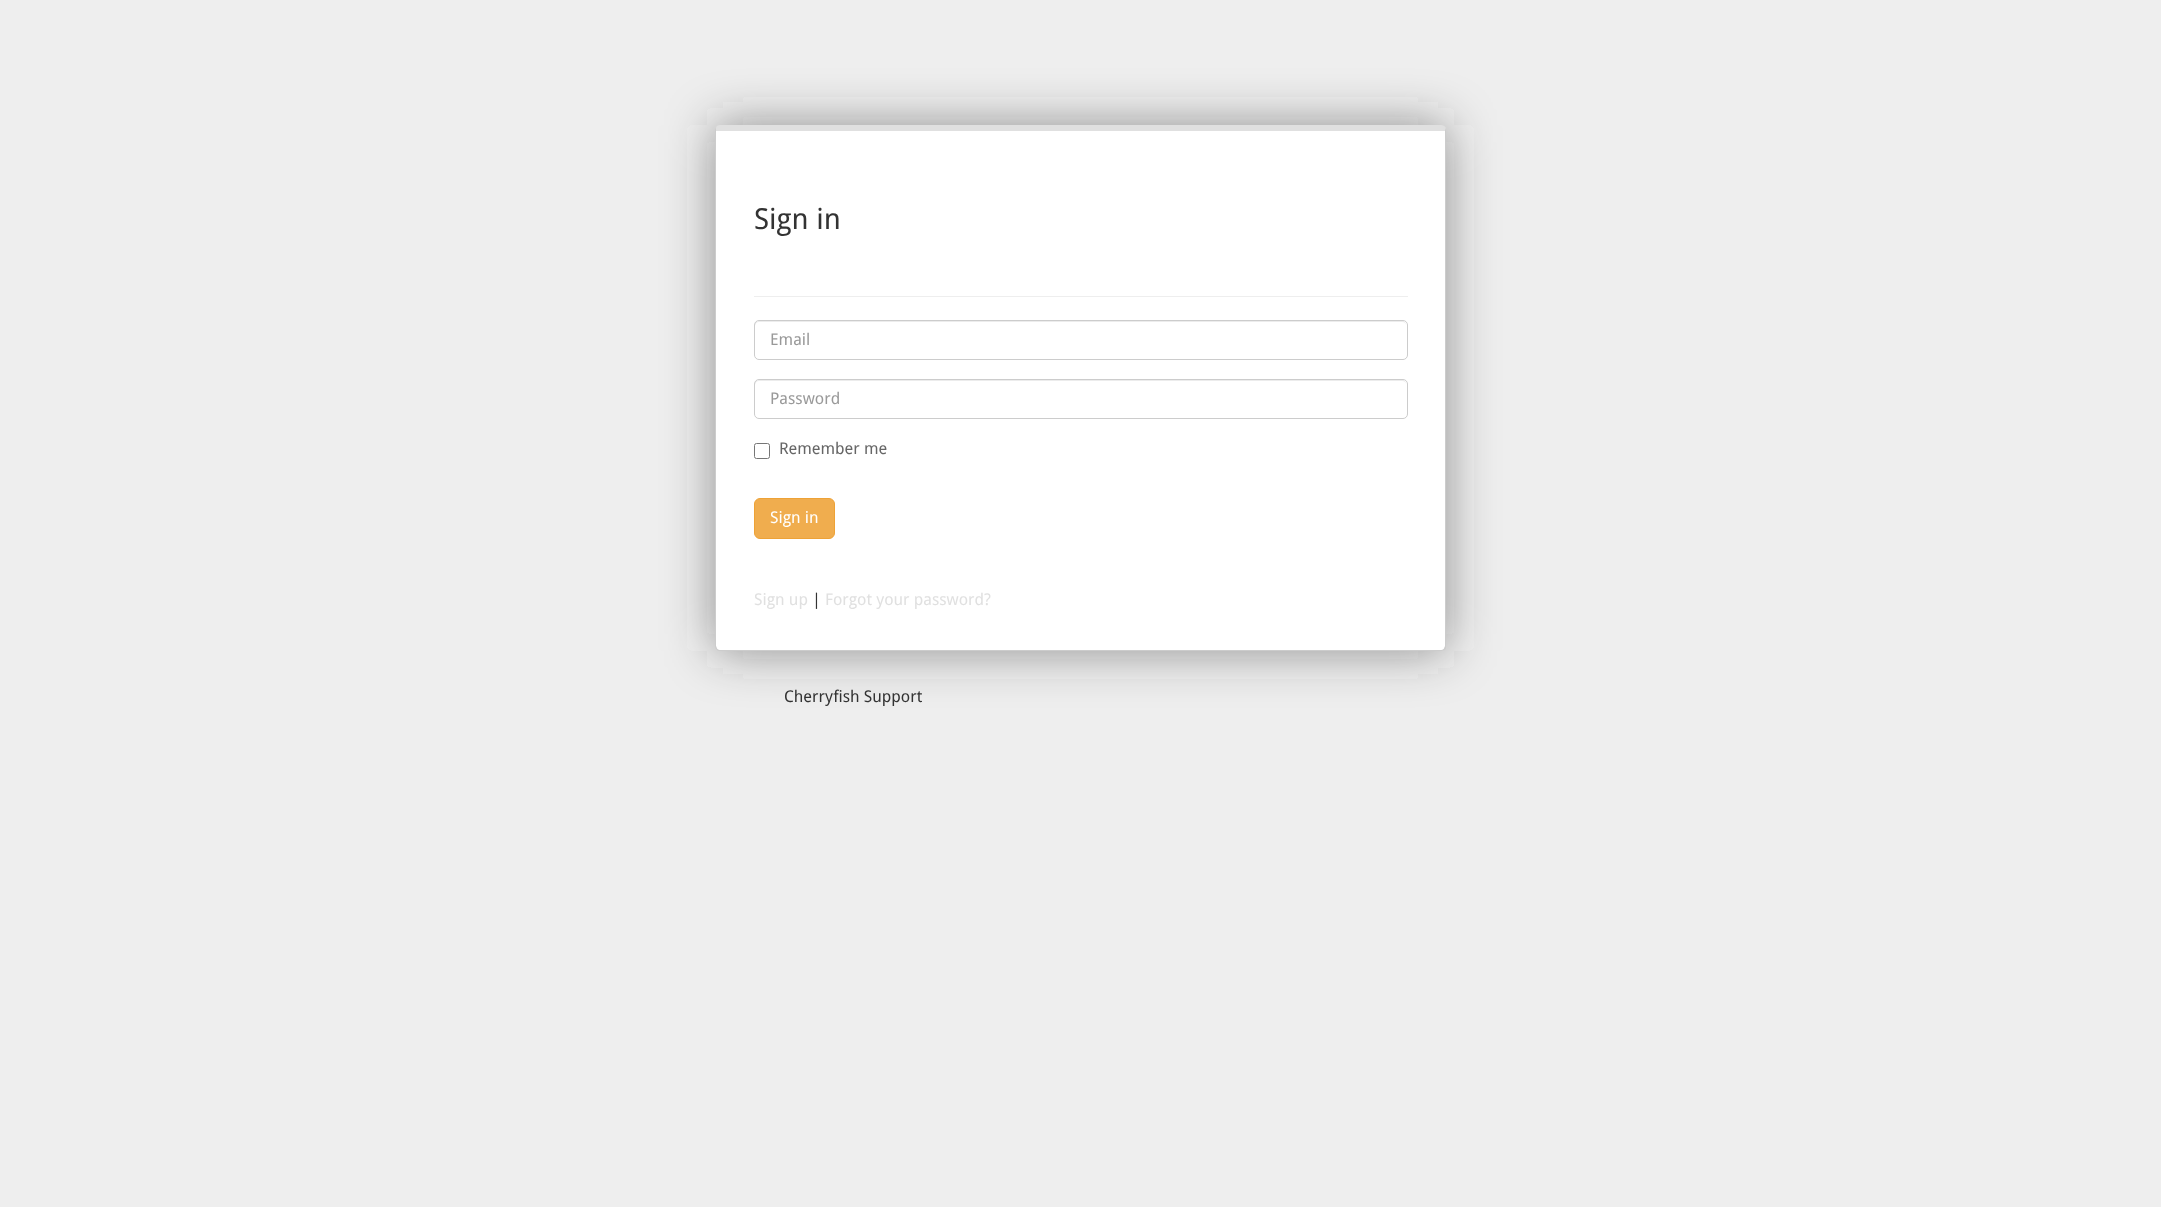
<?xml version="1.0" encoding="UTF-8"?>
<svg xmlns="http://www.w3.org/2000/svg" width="2161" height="1207">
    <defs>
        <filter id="blur1" x="-50%" y="-200%" width="200%" height="500%"><feGaussianBlur stdDeviation="25"/></filter>
    </defs>
    <rect width="100%" height="100%" fill="#EEEEEE"/>
    <rect x="715" y="125" width="731" height="526" rx="5" fill="#323232" fill-opacity="0.5" filter="url(#blur1)"/>
    <path d="M 720 131 H 1445 V 646 C 1445 648 1443 650 1441 650 H 720 C 718 650 716 648 716 646 V 131 Z" fill="#FFFFFF"/>
    <path d="M 720 125 C 718 125 716 126 716 128 V 131 H 1445 L 1446 128 C 1445 126 1443 125 1441 125 Z" fill="#E0E0E0"/>
    <path d="M 1446 128 V 646 C 1446 647 1446 649 1445 650 L 1444 649 C 1444 648 1445 647 1445 646 V 131 Z" fill="#CCCCCC"/>
    <path d="M 1445 650 C 1444 650 1442 651 1441 651 H 720 C 719 651 717 651 717 650 V 649 C 718 650 719 650 720 650 H 1441 C 1442 650 1443 650 1444 649 Z" fill="#CCCCCC"/>
    <path d="M 715 130 V 646 C 715 648 716 649 717 650 V 649 L 716 646 V 131 V 128 Z" fill="#CCCCCC"/>
    <text x="754" y="229" font-family="Droid Sans" font-size="29" fill="#333333">Sign in</text>
    <rect x="754" y="296" width="654" height="1" fill="#EEEEEE"/>
    <path d="M 759 322 H 1402 C 1405 322 1406 324 1406 326 C 1406 323 1405 321 1402 321 H 759 L 756 322 L 755 323 V 326 C 755 324 757 322 759 322 Z" fill="#ECECEC"/>
    <rect x="754.5" y="320.5" width="653" height="39" rx="4.5" fill="none" stroke="#CCCCCC"/>
    <text x="770" y="345" font-family="Droid Sans" font-size="16.25" fill="#999999">Email</text>
    <path d="M 759 381 H 1402 C 1405 381 1406 383 1406 385 C 1406 382 1405 380 1402 380 H 759 L 756 381 L 755 382 V 385 C 755 383 757 381 759 381 Z" fill="#ECECEC"/>
    <rect x="754.5" y="379.5" width="653" height="39" rx="4.5" fill="none" stroke="#CCCCCC"/>
    <text x="770" y="404" font-family="Droid Sans" font-size="16.25" fill="#999999">Password</text>
    <rect x="754.5" y="443.5" width="15" height="15" rx="2" fill="none" stroke="#767676"/>
    <text x="779" y="454" font-family="Droid Sans" font-size="16.25" fill="#666666">Remember me</text>
    <rect x="754.5" y="498.5" width="80" height="40" rx="5.5" fill="#F0AD4E" stroke="#EEA236"/>
    <text x="770" y="523" font-family="Droid Sans" font-size="16.25" fill="#FFFFFF">Sign in</text>
    <text x="754" y="605" font-family="Droid Sans" font-size="16.25" fill="#E0E0E0">Sign up</text>
    <text x="812" y="605" font-family="Droid Sans" font-size="16.25" fill="#333333">|</text>
    <text x="825" y="605" font-family="Droid Sans" font-size="16.25" fill="#E0E0E0">Forgot your password?</text>
    <text x="784" y="702" font-family="Droid Sans" font-size="16.25" fill="#333333">Cherryfish Support</text>
</svg>
